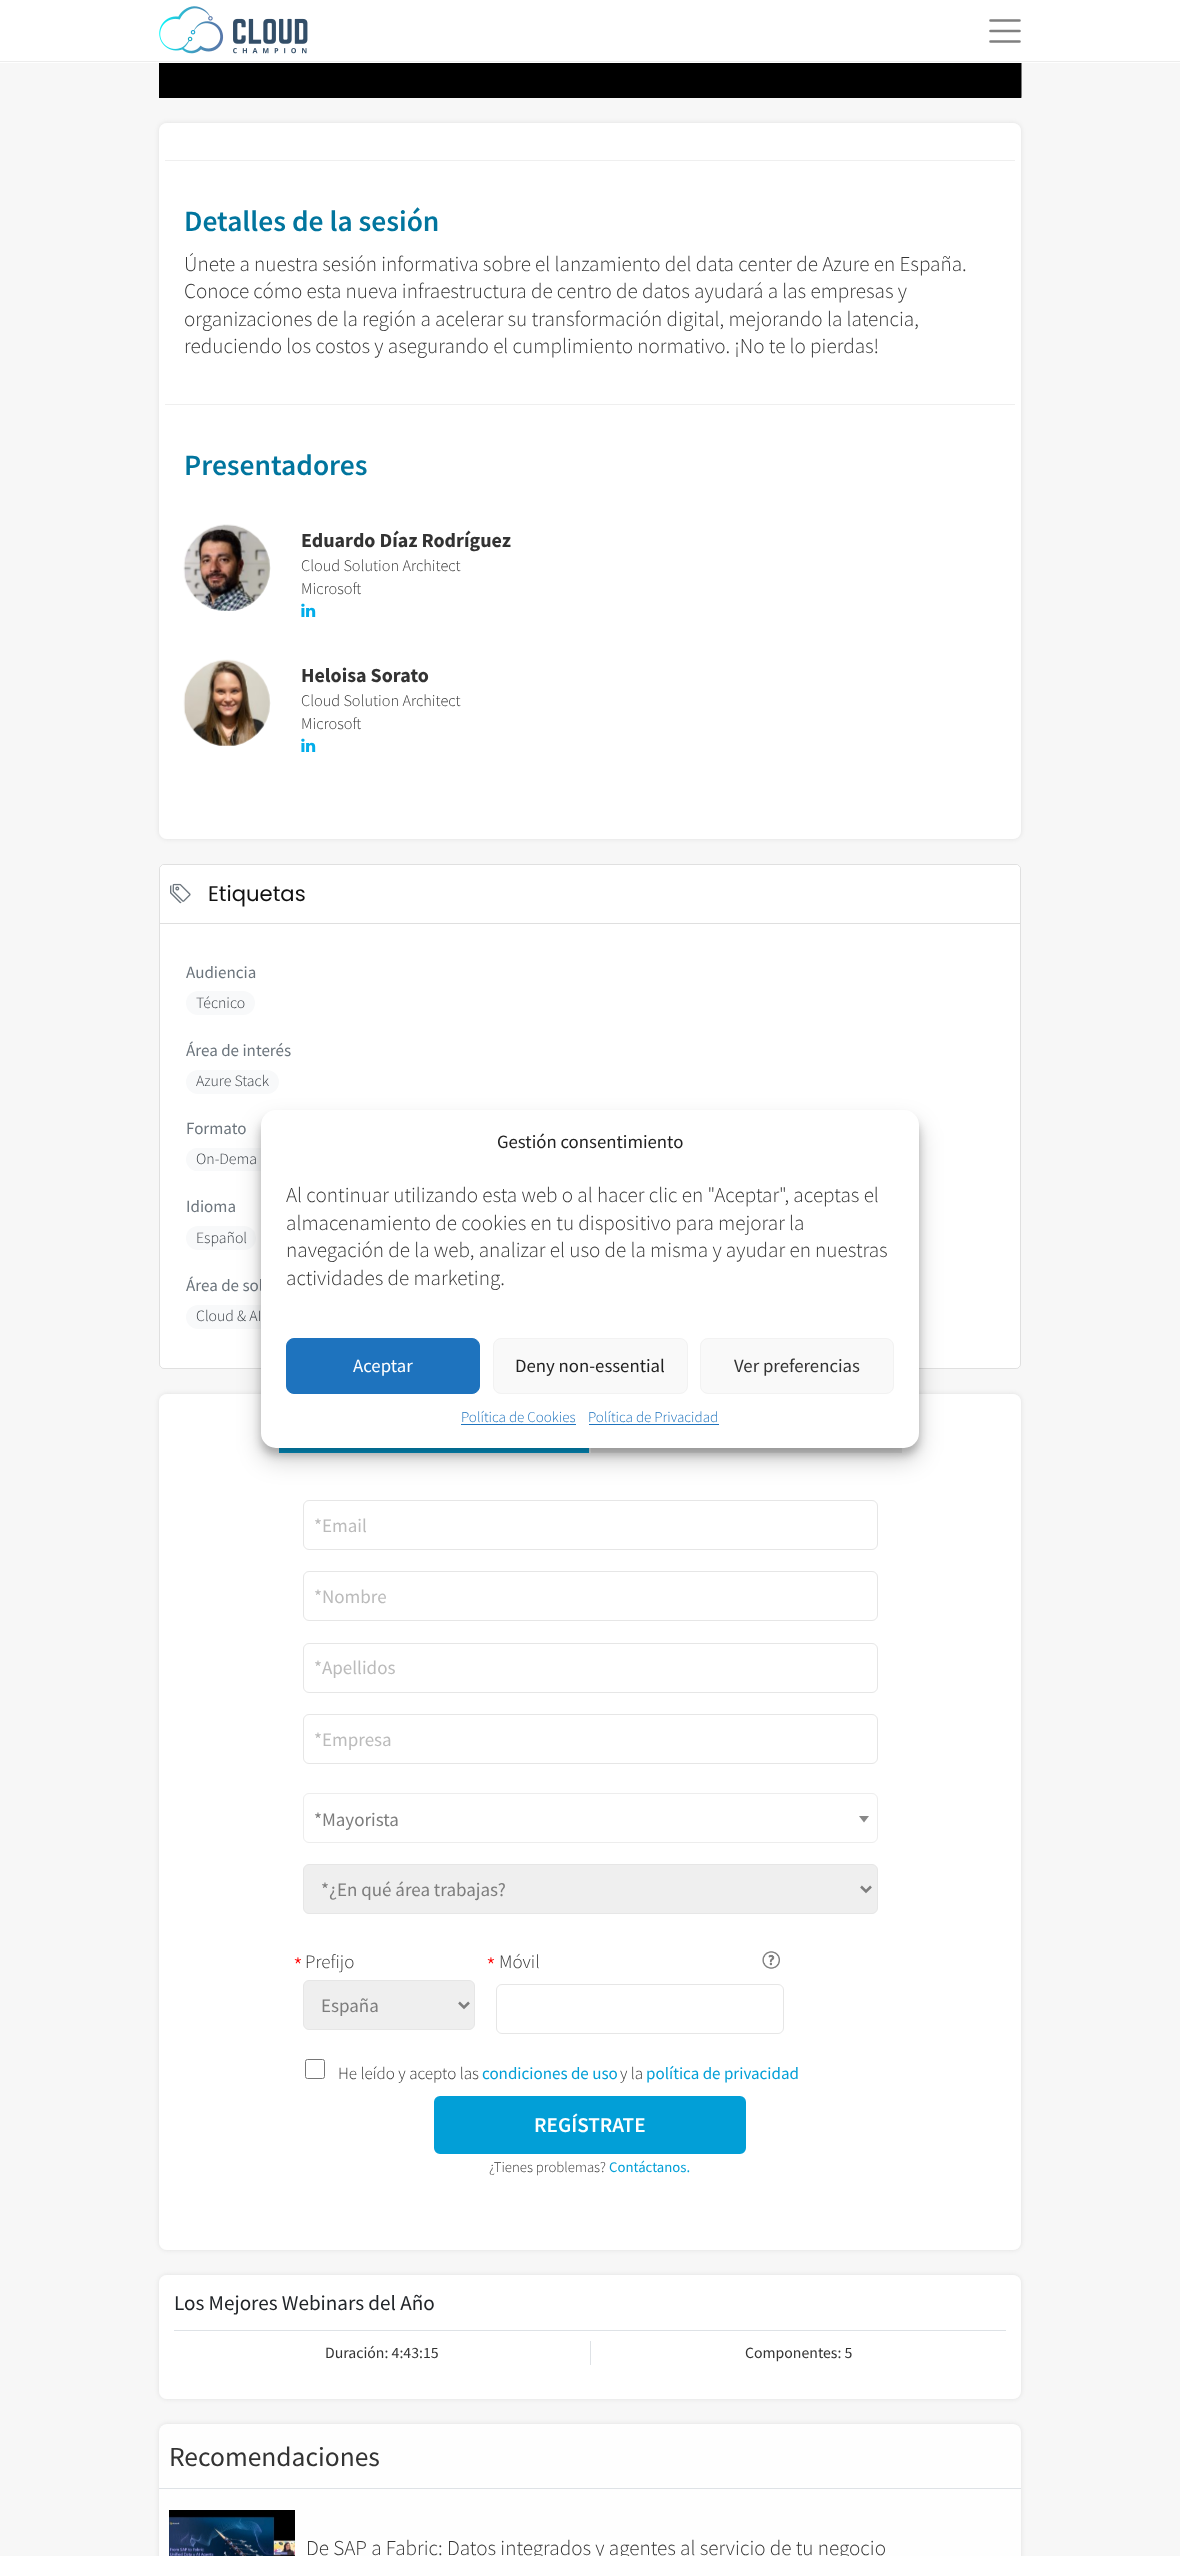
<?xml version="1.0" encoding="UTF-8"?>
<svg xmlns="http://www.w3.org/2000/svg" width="1180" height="2556">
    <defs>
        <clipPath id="clip1"><path d="M 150 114 H 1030 V 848 H 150 Z M 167 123 H 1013 C 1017.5 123 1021 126.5 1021 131 V 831 C 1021 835.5 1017.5 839 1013 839 H 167 C 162.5 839 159 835.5 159 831 V 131 C 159 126.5 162.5 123 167 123 Z" clip-rule="evenodd"/></clipPath>
        <filter id="blur1" x="-50%" y="-200%" width="200%" height="500%"><feGaussianBlur stdDeviation="2.5"/></filter>
        <clipPath id="clip2"><path d="M 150 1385 H 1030 V 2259 H 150 Z M 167 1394 H 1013 C 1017.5 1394 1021 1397.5 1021 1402 V 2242 C 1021 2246.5 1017.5 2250 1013 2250 H 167 C 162.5 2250 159 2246.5 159 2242 V 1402 C 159 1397.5 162.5 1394 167 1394 Z" clip-rule="evenodd"/></clipPath>
        <clipPath id="clip3"><path d="M 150 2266 H 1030 V 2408 H 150 Z M 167 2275 H 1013 C 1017.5 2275 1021 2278.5 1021 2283 V 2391 C 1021 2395.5 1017.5 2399 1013 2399 H 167 C 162.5 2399 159 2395.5 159 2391 V 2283 C 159 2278.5 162.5 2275 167 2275 Z" clip-rule="evenodd"/></clipPath>
        <filter id="blur2" x="-50%" y="-200%" width="200%" height="500%"><feGaussianBlur stdDeviation="4"/></filter>
        <filter id="blur3" x="-50%" y="-200%" width="200%" height="500%"><feGaussianBlur stdDeviation="12.5"/></filter>
    </defs>
    <rect width="100%" height="100%" fill="#F7F7F7"/>
    <rect x="0" y="0" width="1180" height="63" fill="#FFFFFF"/>
    <rect x="0" y="61" width="1180" height="1" fill="#EDEDED"/>
    <image x="159" y="6" width="149" height="48" href="img_01.png"/>
    <path d="M 990.5 20.5 H 1019.5 M 990.5 31 H 1019.5 M 990.5 41.5 H 1019.5" fill="none" stroke="#808080" stroke-width="2.6" stroke-linecap="round"/>
    <rect x="159" y="63" width="862" height="35" fill="#000000"/>
    <image x="159" y="63" width="863" height="35" href="img_02.png"/>
    <g clip-path="url(#clip1)">
        <rect x="159" y="123" width="862" height="716" rx="8" fill="#DFDFDF" filter="url(#blur1)"/>
    </g>
    <rect x="159" y="123" width="862" height="716" rx="8" fill="#FFFFFF" fill-opacity="0.9"/>
    <rect x="165" y="160" width="850" height="1" fill="#EFEFEF"/>
    <text x="184" y="231" font-family="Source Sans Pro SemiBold" font-size="29.5" font-weight="600" fill="#01759E">Detalles de la sesión</text>
    <text font-family="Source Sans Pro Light" font-size="21.15" font-weight="300" fill="#333333">
        <tspan x="184" y="271">Únete a nuestra sesión informativa sobre el lanzamiento del data center de Azure en España.</tspan>
        <tspan x="184" y="298">Conoce cómo esta nueva infraestructura de centro de datos ayudará a las empresas y</tspan>
        <tspan x="184" y="326">organizaciones de la región a acelerar su transformación digital, mejorando la latencia,</tspan>
        <tspan x="184" y="353">reduciendo los costos y asegurando el cumplimiento normativo. ¡No te lo pierdas!</tspan>
    </text>
    <rect x="165" y="404" width="850" height="1" fill="#EFEFEF"/>
    <text x="184" y="475" font-family="Source Sans Pro SemiBold" font-size="29.5" font-weight="600" fill="#01759E">Presentadores</text>
    <image x="183" y="524" width="88" height="87" href="img_03.png"/>
    <text x="301" y="547" font-family="Source Sans Pro" font-size="20" font-weight="700" fill="#333333">Eduardo Díaz Rodríguez</text>
    <text font-family="Source Sans Pro Light" font-size="16.25" font-weight="300" fill="#333333">
        <tspan x="301" y="571">Cloud Solution Architect</tspan>
        <tspan x="301" y="594">Microsoft</tspan>
    </text>
    <image x="301" y="603" width="15" height="14" href="img_04.png"/>
    <image x="183" y="659" width="88" height="87" href="img_05.png"/>
    <text x="301" y="682" font-family="Source Sans Pro" font-size="20" font-weight="700" fill="#333333">Heloisa Sorato</text>
    <text font-family="Source Sans Pro Light" font-size="16.25" font-weight="300" fill="#333333">
        <tspan x="301" y="706">Cloud Solution Architect</tspan>
        <tspan x="301" y="729">Microsoft</tspan>
    </text>
    <image x="301" y="738" width="15" height="14" href="img_04.png"/>
    <rect x="159" y="864" width="862" height="505" rx="5" fill="#FFFFFF"/>
    <rect x="159.5" y="864.5" width="861" height="504" rx="4.5" fill="none" stroke="#000000" stroke-opacity="0.12"/>
    <path d="M 164 865 H 1016 C 1018 865 1020 867 1020 869 V 924 H 160 V 869 C 160 867 162 865 164 865 Z" fill="#FFFFFF"/>
    <rect x="160" y="923" width="860" height="1" fill="#DFDFDF"/>
    <image x="170" y="883" width="21" height="21" href="img_06.png"/>
    <text x="208" y="901" font-family="Poppins" font-size="21.15" fill="#111111">Etiquetas</text>
    <text x="186" y="978" font-family="Source Sans Pro" font-size="17" fill="#6C757D">Audiencia</text>
    <rect x="186" y="991" width="69" height="24" rx="12" fill="#F8F9FA"/>
    <text x="196" y="1008" font-family="Source Sans Pro Light" font-size="15.75" font-weight="300" fill="#343A40">Técnico</text>
    <text x="186" y="1056" font-family="Source Sans Pro" font-size="17" fill="#6C757D">Área de interés</text>
    <rect x="186" y="1070" width="93" height="24" rx="12" fill="#F8F9FA"/>
    <text x="196" y="1086" font-family="Source Sans Pro Light" font-size="15.75" font-weight="300" fill="#343A40">Azure Stack</text>
    <text x="186" y="1134" font-family="Source Sans Pro" font-size="17" fill="#6C757D">Formato</text>
    <rect x="186" y="1148" width="98" height="23" rx="11.5" fill="#F8F9FA"/>
    <text x="196" y="1164" font-family="Source Sans Pro Light" font-size="15.75" font-weight="300" fill="#343A40">On-Dema</text>
    <text x="186" y="1212" font-family="Source Sans Pro" font-size="17" fill="#6C757D">Idioma</text>
    <rect x="186" y="1226" width="70" height="24" rx="12" fill="#F8F9FA"/>
    <text x="196" y="1243" font-family="Source Sans Pro Light" font-size="15.75" font-weight="300" fill="#343A40">Español</text>
    <text x="186" y="1291" font-family="Source Sans Pro" font-size="17" fill="#6C757D">Área de sol</text>
    <rect x="186" y="1305" width="144" height="24" rx="12" fill="#F8F9FA"/>
    <text x="196" y="1321" font-family="Source Sans Pro Light" font-size="15.75" font-weight="300" fill="#343A40">Cloud &amp; AI</text>
    <g clip-path="url(#clip2)">
        <rect x="159" y="1394" width="862" height="856" rx="8" fill="#DFDFDF" filter="url(#blur1)"/>
    </g>
    <rect x="159" y="1394" width="862" height="856" rx="8" fill="#FFFFFF" fill-opacity="0.9"/>
    <rect x="279" y="1448" width="310" height="5" fill="#029FD7"/>
    <rect x="591" y="1448" width="311" height="5" fill="#EDEDED"/>
    <rect x="303.5" y="1500.5" width="574" height="49" rx="5.5" fill="none" stroke="#E6E6E6"/>
    <text x="314" y="1532" font-family="Source Sans Pro" font-size="19" fill="#BBBBBB">*Email</text>
    <rect x="303.5" y="1571.5" width="574" height="49" rx="5.5" fill="none" stroke="#E6E6E6"/>
    <text x="314" y="1603" font-family="Source Sans Pro" font-size="19" fill="#BBBBBB">*Nombre</text>
    <rect x="303.5" y="1643.5" width="574" height="49" rx="5.5" fill="none" stroke="#E6E6E6"/>
    <text x="314" y="1674" font-family="Source Sans Pro" font-size="19" fill="#BBBBBB">*Apellidos</text>
    <rect x="303.5" y="1714.5" width="574" height="49" rx="5.5" fill="none" stroke="#E6E6E6"/>
    <text x="314" y="1746" font-family="Source Sans Pro" font-size="19" fill="#BBBBBB">*Empresa</text>
    <rect x="303.5" y="1793.5" width="574" height="49" rx="5.5" fill="none" stroke="#EDEDED"/>
    <text x="314" y="1826" font-family="Source Sans Pro" font-size="19" fill="#7D7D7D">*Mayorista</text>
    <path d="M 859 1816 H 869 L 864 1822.5 Z" fill="#888888"/>
    <rect x="303.5" y="1864.5" width="574" height="49" rx="5.5" fill="#EFEFEF" stroke="#E6E6E6"/>
    <path d="M 861 1886.5 L 866 1891.5 L 871 1886.5" fill="none" stroke="#7D7D7D" stroke-width="2.5"/>
    <text x="321" y="1896" font-family="Source Sans Pro" font-size="19" fill="#7D7D7D">*¿En qué área trabajas?</text>
    <text x="293" y="1975" font-family="Source Sans Pro Light" font-size="25" font-weight="300" fill="#FF0000">*</text>
    <text x="305" y="1968" font-family="Source Sans Pro Light" font-size="19" font-weight="300" fill="#333333">Prefijo</text>
    <rect x="303.5" y="1980.5" width="171" height="49" rx="5.5" fill="#EFEFEF" stroke="#E6E6E6"/>
    <path d="M 459 2002.5 L 464 2007.5 L 469 2002.5" fill="none" stroke="#7D7D7D" stroke-width="2.5"/>
    <text x="321" y="2012" font-family="Source Sans Pro" font-size="19" fill="#7D7D7D">España</text>
    <text x="486" y="1975" font-family="Source Sans Pro Light" font-size="25" font-weight="300" fill="#FF0000">*</text>
    <text x="499" y="1968" font-family="Source Sans Pro Light" font-size="19" font-weight="300" fill="#333333">Móvil</text>
    <image x="762" y="1951" width="18" height="18" href="img_07.png"/>
    <rect x="496.5" y="1984.5" width="287" height="49" rx="5.5" fill="none" stroke="#E6E6E6"/>
    <rect x="305.5" y="2059.5" width="19" height="19" rx="2" fill="none" stroke="#767676"/>
    <text x="338" y="2079" font-family="Source Sans Pro Light" font-size="17" font-weight="300" fill="#333333">He leído y acepto las</text>
    <text x="482" y="2079" font-family="Source Sans Pro" font-size="17" fill="#029FD7">condiciones de uso</text>
    <text x="620" y="2079" font-family="Source Sans Pro Light" font-size="17" font-weight="300" fill="#333333">y la</text>
    <text x="646" y="2079" font-family="Source Sans Pro" font-size="17" fill="#029FD7">política de privacidad</text>
    <rect x="435.5" y="2097.5" width="309" height="55" rx="4.5" fill="#029FD7" stroke="#029FD7" stroke-width="3"/>
    <text x="534" y="2132" font-family="Source Sans Pro SemiBold" font-size="21.15" font-weight="600" fill="#FFFFFF">REGÍSTRATE</text>
    <text x="489" y="2172" font-family="Source Sans Pro Light" font-size="14.75" font-weight="300" fill="#333333">¿Tienes problemas?</text>
    <text x="609" y="2172" font-family="Source Sans Pro" font-size="14.75" fill="#029FD7">Contáctanos.</text>
    <g clip-path="url(#clip3)">
        <rect x="159" y="2275" width="862" height="124" rx="8" fill="#DFDFDF" filter="url(#blur1)"/>
    </g>
    <rect x="159" y="2275" width="862" height="124" rx="8" fill="#FFFFFF" fill-opacity="0.9"/>
    <rect x="174" y="2330" width="832" height="1" fill="#DEE2E6"/>
    <text x="174" y="2310" font-family="Source Sans Pro" font-size="21.15" fill="#212529">Los Mejores Webinars del Año</text>
    <text x="325" y="2358" font-family="Source Sans Pro" font-size="15.75" fill="#333333">Duración: 4:43:15</text>
    <rect x="590" y="2341" width="1" height="24" fill="#DEE2E6"/>
    <text x="745" y="2358" font-family="Source Sans Pro" font-size="15.75" fill="#333333">Componentes: 5</text>
    <rect x="159" y="2424" width="862" height="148" rx="8" fill="#DFDFDF" filter="url(#blur1)"/>
    <rect x="159" y="2424" width="862" height="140" rx="8" fill="#FEFEFE"/>
    <rect x="159" y="2488" width="862" height="1" fill="#DEE2E6"/>
    <text x="169" y="2466" font-family="Source Sans Pro" font-size="27.5" fill="#333333">Recomendaciones</text>
    <image x="169" y="2510" width="126" height="46" href="img_08.png"/>
    <text x="306" y="2555" font-family="Source Sans Pro Light" font-size="21.15" font-weight="300" fill="#333333">De SAP a Fabric: Datos integrados y agentes al servicio de tu negocio</text>
    <rect x="261" y="1118" width="658" height="337" rx="15" fill="#000000" fill-opacity="0.23" filter="url(#blur2)"/>
    <rect x="261" y="1123" width="658" height="337" rx="15" fill="#000000" fill-opacity="0.19" filter="url(#blur3)"/>
    <rect x="261" y="1110" width="658" height="338" rx="15" fill="#FFFFFF"/>
    <text x="497" y="1148" font-family="Source Sans Pro" font-size="18.75" fill="#222222">Gestión consentimiento</text>
    <text font-family="Source Sans Pro Light" font-size="21.15" font-weight="300" fill="#333333">
        <tspan x="286" y="1202">Al continuar utilizando esta web o al hacer clic en "Aceptar", aceptas el</tspan>
        <tspan x="286" y="1230">almacenamiento de cookies en tu dispositivo para mejorar la</tspan>
        <tspan x="286" y="1257">navegación de la web, analizar el uso de la misma y ayudar en nuestras</tspan>
        <tspan x="286" y="1285">actividades de marketing.</tspan>
    </text>
    <rect x="286.5" y="1338.5" width="193" height="55" rx="7.5" fill="#1E73BE" stroke="#1E73BE"/>
    <text x="353" y="1372" font-family="Source Sans Pro" font-size="18.75" fill="#FFFFFF">Aceptar</text>
    <rect x="493.5" y="1338.5" width="194" height="55" rx="7.5" fill="#F9F9F9" stroke="#F2F2F2"/>
    <text x="515" y="1372" font-family="Source Sans Pro" font-size="18.75" fill="#222222">Deny non-essential</text>
    <rect x="700.5" y="1338.5" width="193" height="55" rx="7.5" fill="#F9F9F9" stroke="#F2F2F2"/>
    <text x="734" y="1372" font-family="Source Sans Pro" font-size="18.75" fill="#333333">Ver preferencias</text>
    <text x="461" y="1422" font-family="Source Sans Pro Light" font-size="15" font-weight="300" fill="#1E73BE">Política de Cookies</text>
    <rect x="461" y="1424" width="115" height="1" fill="#1E73BE"/>
    <text x="588" y="1422" font-family="Source Sans Pro Light" font-size="15" font-weight="300" fill="#1E73BE">Política de Privacidad</text>
    <rect x="589" y="1424" width="130" height="1" fill="#1E73BE"/>
</svg>
